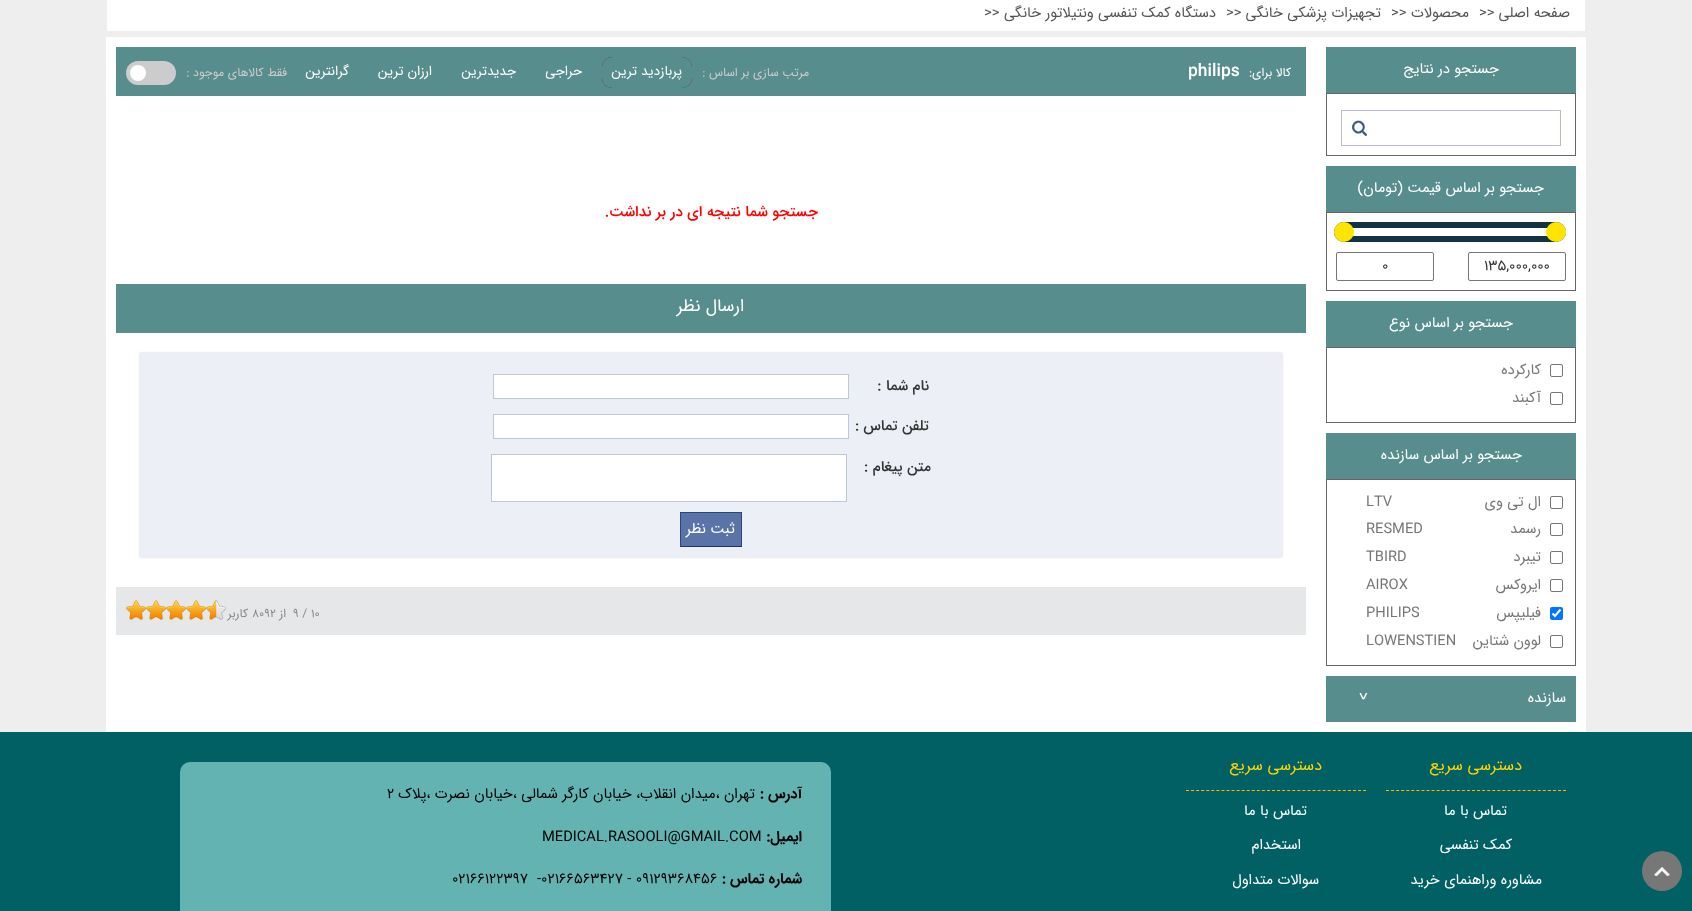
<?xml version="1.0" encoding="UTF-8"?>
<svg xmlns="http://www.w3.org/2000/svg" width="1692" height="911">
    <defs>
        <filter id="blur1" x="-50%" y="-200%" width="200%" height="500%"><feGaussianBlur stdDeviation="1"/></filter>
    </defs>
    <rect width="100%" height="100%" fill="#EEEEEE"/>
    <rect x="107" y="0" width="1478" height="31" fill="#FFFFFF"/>
    <text x="1570" y="17" font-family="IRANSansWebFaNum" font-size="14.7" direction="rtl" fill="#555555">صفحه اصلی</text>
    <text x="1479" y="17" font-family="IRANSansWebFaNum" font-size="14.7" fill="#555555">&gt;&gt;</text>
    <text x="1469" y="17" font-family="IRANSansWebFaNum" font-size="14.7" direction="rtl" fill="#555555">محصولات</text>
    <text x="1391" y="17" font-family="IRANSansWebFaNum" font-size="14.7" fill="#555555">&gt;&gt;</text>
    <text x="1381" y="17" font-family="IRANSansWebFaNum" font-size="14.7" direction="rtl" fill="#555555">تجهیزات پزشکی خانگی</text>
    <text x="1226" y="17" font-family="IRANSansWebFaNum" font-size="14.7" fill="#555555">&gt;&gt;</text>
    <text x="1216" y="17" font-family="IRANSansWebFaNum" font-size="14.7" direction="rtl" fill="#555555">دستگاه کمک تنفسی ونتیلاتور خانگی</text>
    <text x="984" y="17" font-family="IRANSansWebFaNum" font-size="14.7" fill="#555555">&gt;&gt;</text>
    <rect x="106" y="37" width="1480" height="695" fill="#FFFFFF"/>
    <rect x="1326" y="47" width="250" height="46" fill="#578D8C"/>
    <text x="1499" y="73" font-family="IRANSansWebFaNum" font-size="14.7" direction="rtl" fill="#FFFFFF">جستجو در نتایج</text>
    <rect x="1326.5" y="93.5" width="249" height="62" fill="none" stroke="#666666"/>
    <rect x="1341" y="110" width="220" height="1" fill="#BCBBCB"/>
    <rect x="1560" y="110" width="1" height="36" fill="#BCBBCB"/>
    <rect x="1341" y="145" width="220" height="1" fill="#BCBBCB"/>
    <image x="1352" y="120" width="15" height="16" href="img_01.png"/>
    <rect x="1341" y="110" width="1" height="36" fill="#BCBBCB"/>
    <rect x="1326" y="166" width="250" height="46" fill="#578D8C"/>
    <text x="1544" y="192" font-family="IRANSansWebFaNum" font-size="14.7" direction="rtl" fill="#FFFFFF">جستجو بر اساس قیمت (تومان)</text>
    <rect x="1326.5" y="212.5" width="249" height="78" fill="none" stroke="#666666"/>
    <rect x="1334" y="222" width="232" height="20" rx="10" fill="#113344"/>
    <rect x="1344" y="228" width="222" height="8" rx="4" fill="#FFFFFF"/>
    <circle cx="1556" cy="232" r="10" fill="#FFE401"/>
    <circle cx="1344" cy="232" r="10" fill="#FFE401"/>
    <rect x="1468.5" y="252.5" width="97" height="28" rx="1.5" fill="none" stroke="#767676"/>
    <text x="1484" y="270" font-family="IRANSansWebFaNum" font-size="14.7" fill="#333333">135,000,000</text>
    <rect x="1336.5" y="252.5" width="97" height="28" rx="1.5" fill="none" stroke="#767676"/>
    <text x="1382" y="270" font-family="IRANSansWebFaNum" font-size="14.7" fill="#333333">0</text>
    <rect x="1326" y="301" width="250" height="46" fill="#578D8C"/>
    <text x="1513" y="327" font-family="IRANSansWebFaNum" font-size="14.7" direction="rtl" fill="#FFFFFF">جستجو بر اساس نوع</text>
    <rect x="1326.5" y="347.5" width="249" height="75" fill="none" stroke="#666666"/>
    <rect x="1550.5" y="364.5" width="12" height="12" rx="1.5" fill="none" stroke="#767676"/>
    <text x="1541" y="374" font-family="IRANSansWebFaNum" font-size="14.7" direction="rtl" fill="#777777">کارکرده</text>
    <rect x="1550.5" y="392.5" width="12" height="12" rx="1.5" fill="none" stroke="#767676"/>
    <text x="1541" y="402" font-family="IRANSansWebFaNum" font-size="14.7" direction="rtl" fill="#777777">آکبند</text>
    <rect x="1326" y="433" width="250" height="46" fill="#578D8C"/>
    <text x="1522" y="459" font-family="IRANSansWebFaNum" font-size="14.7" direction="rtl" fill="#FFFFFF">جستجو بر اساس سازنده</text>
    <rect x="1326.5" y="479.5" width="249" height="186" fill="none" stroke="#666666"/>
    <rect x="1550.5" y="496.5" width="12" height="12" rx="1.5" fill="none" stroke="#767676"/>
    <text x="1541" y="506" font-family="IRANSansWebFaNum" font-size="14.7" direction="rtl" fill="#777777">ال تی وی</text>
    <text x="1366" y="506" font-family="IRANSansWebFaNum" font-size="14.7" fill="#777777">LTV</text>
    <rect x="1550.5" y="523.5" width="12" height="12" rx="1.5" fill="none" stroke="#767676"/>
    <text x="1541" y="533" font-family="IRANSansWebFaNum" font-size="14.7" direction="rtl" fill="#777777">رسمد</text>
    <text x="1366" y="533" font-family="IRANSansWebFaNum" font-size="14.7" fill="#777777">RESMED</text>
    <rect x="1550.5" y="551.5" width="12" height="12" rx="1.5" fill="none" stroke="#767676"/>
    <text x="1541" y="561" font-family="IRANSansWebFaNum" font-size="14.7" direction="rtl" fill="#777777">تیبرد</text>
    <text x="1366" y="561" font-family="IRANSansWebFaNum" font-size="14.7" fill="#777777">TBIRD</text>
    <rect x="1550.5" y="579.5" width="12" height="12" rx="1.5" fill="none" stroke="#767676"/>
    <text x="1541" y="589" font-family="IRANSansWebFaNum" font-size="14.7" direction="rtl" fill="#777777">ایروکس</text>
    <text x="1366" y="589" font-family="IRANSansWebFaNum" font-size="14.7" fill="#777777">AIROX</text>
    <rect x="1550" y="607" width="13" height="13" rx="2" fill="#0075FF"/>
    <path d="M 1552.5 613.5 L 1555 616 L 1560.5 609.5" fill="none" stroke="#FFFFFF" stroke-width="2.1"/>
    <text x="1541" y="617" font-family="IRANSansWebFaNum" font-size="14.7" direction="rtl" fill="#777777">فیلیپس</text>
    <text x="1366" y="617" font-family="IRANSansWebFaNum" font-size="14.7" fill="#777777">PHILIPS</text>
    <rect x="1550.5" y="635.5" width="12" height="12" rx="1.5" fill="none" stroke="#767676"/>
    <text x="1541" y="645" font-family="IRANSansWebFaNum" font-size="14.7" direction="rtl" fill="#777777">لوون شتاین</text>
    <text x="1366" y="645" font-family="IRANSansWebFaNum" font-size="14.7" fill="#777777">LOWENSTIEN</text>
    <rect x="1326" y="676" width="250" height="46" fill="#578D8C"/>
    <text x="1566" y="702" font-family="IRANSansWebFaNum" font-size="14.7" direction="rtl" fill="#FFFFFF">سازنده</text>
    <text x="1359" y="693" transform="rotate(180 1359 693)" font-family="DejaVu Sans" font-size="14.7" direction="rtl" fill="#FFFFFF">ߍ</text>
    <rect x="116" y="47" width="1190" height="49" fill="#578D8C"/>
    <text x="1291" y="76" font-family="IRANSansWebFaNum" font-size="12" direction="rtl" fill="#FFFFFF">کالا برای:</text>
    <text x="1188" y="76" font-family="IRANSansWebFaNum" font-size="17.5" font-weight="500" fill="#FFFFFF">philips</text>
    <text x="809" y="76" font-family="IRANSansWebFaNum" font-size="12" direction="rtl" fill="#CCCCCC">مرتب سازی بر اساس :</text>
    <rect x="602" y="57" width="90" height="31" rx="10" fill="#8B0000"/>
    <image x="602" y="57" width="90" height="31" href="img_02.png"/>
    <text x="682" y="75" font-family="IRANSansWebFaNum" font-size="13.5" direction="rtl" fill="#FFFFFF">پربازدید ترین</text>
    <text x="582" y="75" font-family="IRANSansWebFaNum" font-size="13.5" direction="rtl" fill="#FFFFFF">حراجی</text>
    <text x="516" y="75" font-family="IRANSansWebFaNum" font-size="13.5" direction="rtl" fill="#FFFFFF">جدیدترین</text>
    <text x="432" y="75" font-family="IRANSansWebFaNum" font-size="13.5" direction="rtl" fill="#FFFFFF">ارزان ترین</text>
    <text x="349" y="75" font-family="IRANSansWebFaNum" font-size="13.5" direction="rtl" fill="#FFFFFF">گرانترین</text>
    <text x="287" y="76" font-family="IRANSansWebFaNum" font-size="12" direction="rtl" fill="#CCCCCC">فقط کالاهای موجود :</text>
    <rect x="126" y="61" width="50" height="24" rx="12" fill="#CCCCCC"/>
    <circle cx="138" cy="73" r="8" fill="#FFFFFF"/>
    <text x="818" y="216" font-family="IRANSansWebFaNum" font-size="15" font-weight="500" direction="rtl" fill="#FF0000">جستجو شما نتیجه ای در بر نداشت.</text>
    <rect x="116" y="284" width="1190" height="49" fill="#578D8C"/>
    <text x="744" y="311" font-family="IRANSansWebFaNum" font-size="17.5" direction="rtl" fill="#FFFFFF">ارسال نظر</text>
    <rect x="140" y="353" width="1142" height="204" fill="#CCCCCC" filter="url(#blur1)"/>
    <rect x="140" y="353" width="1142" height="204" fill="#ECEFF5"/>
    <text x="929" y="390" font-family="IRANSansWebFaNum" font-size="14.7" font-weight="500" direction="rtl" fill="#333333">نام شما :</text>
    <rect x="493.5" y="374.5" width="355" height="24" fill="#FFFFFF" stroke="#BDC7D8"/>
    <text x="929" y="430" font-family="IRANSansWebFaNum" font-size="14.7" font-weight="500" direction="rtl" fill="#333333">تلفن تماس :</text>
    <rect x="493.5" y="414.5" width="355" height="24" fill="#FFFFFF" stroke="#BDC7D8"/>
    <text x="931" y="471" font-family="IRANSansWebFaNum" font-size="14.7" font-weight="500" direction="rtl" fill="#333333">متن پیغام :</text>
    <rect x="491.5" y="454.5" width="355" height="47" fill="#FFFFFF" stroke="#BDC7D8"/>
    <rect x="681" y="513" width="60" height="33" fill="#5B74A8"/>
    <rect x="680" y="512" width="62" height="1" fill="#29447E"/>
    <rect x="741" y="512" width="1" height="35" fill="#29447E"/>
    <rect x="680" y="546" width="62" height="1" fill="#1A356E"/>
    <rect x="680" y="512" width="1" height="35" fill="#29447E"/>
    <text x="735" y="533" font-family="IRANSansWebFaNum" font-size="14.7" direction="rtl" fill="#FFFFFF">ثبت نظر</text>
    <rect x="116" y="587" width="1190" height="48" fill="#E6E7E8"/>
    <text x="293" y="617" font-family="IRANSansWebFaNum" font-size="12" fill="#888888">9 / 10</text>
    <text x="286" y="617" font-family="IRANSansWebFaNum" font-size="12" direction="rtl" fill="#888888">از</text>
    <text x="252" y="617" font-family="IRANSansWebFaNum" font-size="12" fill="#888888">8092</text>
    <text x="248" y="617" font-family="IRANSansWebFaNum" font-size="12" direction="rtl" fill="#888888">کاربر</text>
    <image x="126" y="600" width="100" height="20" href="img_03.png"/>
    <rect x="0" y="732" width="1692" height="179" fill="#006063"/>
    <circle cx="1662" cy="871" r="20" fill="#777777"/>
    <image x="1654" y="867" width="16" height="9" href="img_04.png"/>
    <path d="M 1386 790.5 H 1566" fill="none" stroke="#FBB901" stroke-dasharray="3 2.06"/>
    <text x="1522" y="770" font-family="IRANSansWebFaNum" font-size="16" direction="rtl" fill="#FED501">دسترسی سریع</text>
    <text x="1507" y="815" font-family="IRANSansWebFaNum" font-size="14.7" direction="rtl" fill="#FFFFFF">تماس با ما</text>
    <text x="1512" y="849" font-family="IRANSansWebFaNum" font-size="14.7" direction="rtl" fill="#FFFFFF">کمک تنفسی</text>
    <text x="1542" y="884" font-family="IRANSansWebFaNum" font-size="14.7" direction="rtl" fill="#FFFFFF">مشاوره وراهنمای خرید</text>
    <path d="M 1186 790.5 H 1366" fill="none" stroke="#FBB901" stroke-dasharray="3 2.06"/>
    <text x="1322" y="770" font-family="IRANSansWebFaNum" font-size="16" direction="rtl" fill="#FED501">دسترسی سریع</text>
    <text x="1307" y="815" font-family="IRANSansWebFaNum" font-size="14.7" direction="rtl" fill="#FFFFFF">تماس با ما</text>
    <text x="1301" y="849" font-family="IRANSansWebFaNum" font-size="14.7" direction="rtl" fill="#FFFFFF">استخدام</text>
    <text x="1319" y="884" font-family="IRANSansWebFaNum" font-size="14.7" direction="rtl" fill="#FFFFFF">سوالات متداول</text>
    <image x="180" y="762" width="651" height="149" href="img_05.png"/>
    <text x="802" y="798" font-family="IRANSansWebFaNum" font-size="14.7" font-weight="700" direction="rtl" fill="#000000">آدرس :</text>
    <text x="755" y="798" font-family="IRANSansWebFaNum" font-size="14.7" direction="rtl" fill="#000000">تهران ،میدان انقلاب، خیابان کارگر شمالی ،خیابان نصرت ،پلاک</text>
    <text x="387" y="798" font-family="IRANSansWebFaNum" font-size="14.7" fill="#000000">۲</text>
    <text x="802" y="841" font-family="IRANSansWebFaNum" font-size="14.7" font-weight="700" direction="rtl" fill="#000000">ایمیل:</text>
    <text x="542" y="841" font-family="IRANSansWebFaNum" font-size="14.7" fill="#000000">MEDICAL.RASOOLI@GMAIL.COM</text>
    <text x="802" y="883" font-family="IRANSansWebFaNum" font-size="14.7" font-weight="700" direction="rtl" fill="#000000">شماره تماس :</text>
    <text x="537" y="883" font-family="IRANSansWebFaNum" font-size="14.7" fill="#000000">-02166563427 - 09129368456</text>
    <text x="452" y="883" font-family="IRANSansWebFaNum" font-size="14.7" fill="#000000">02166122397</text>
</svg>
